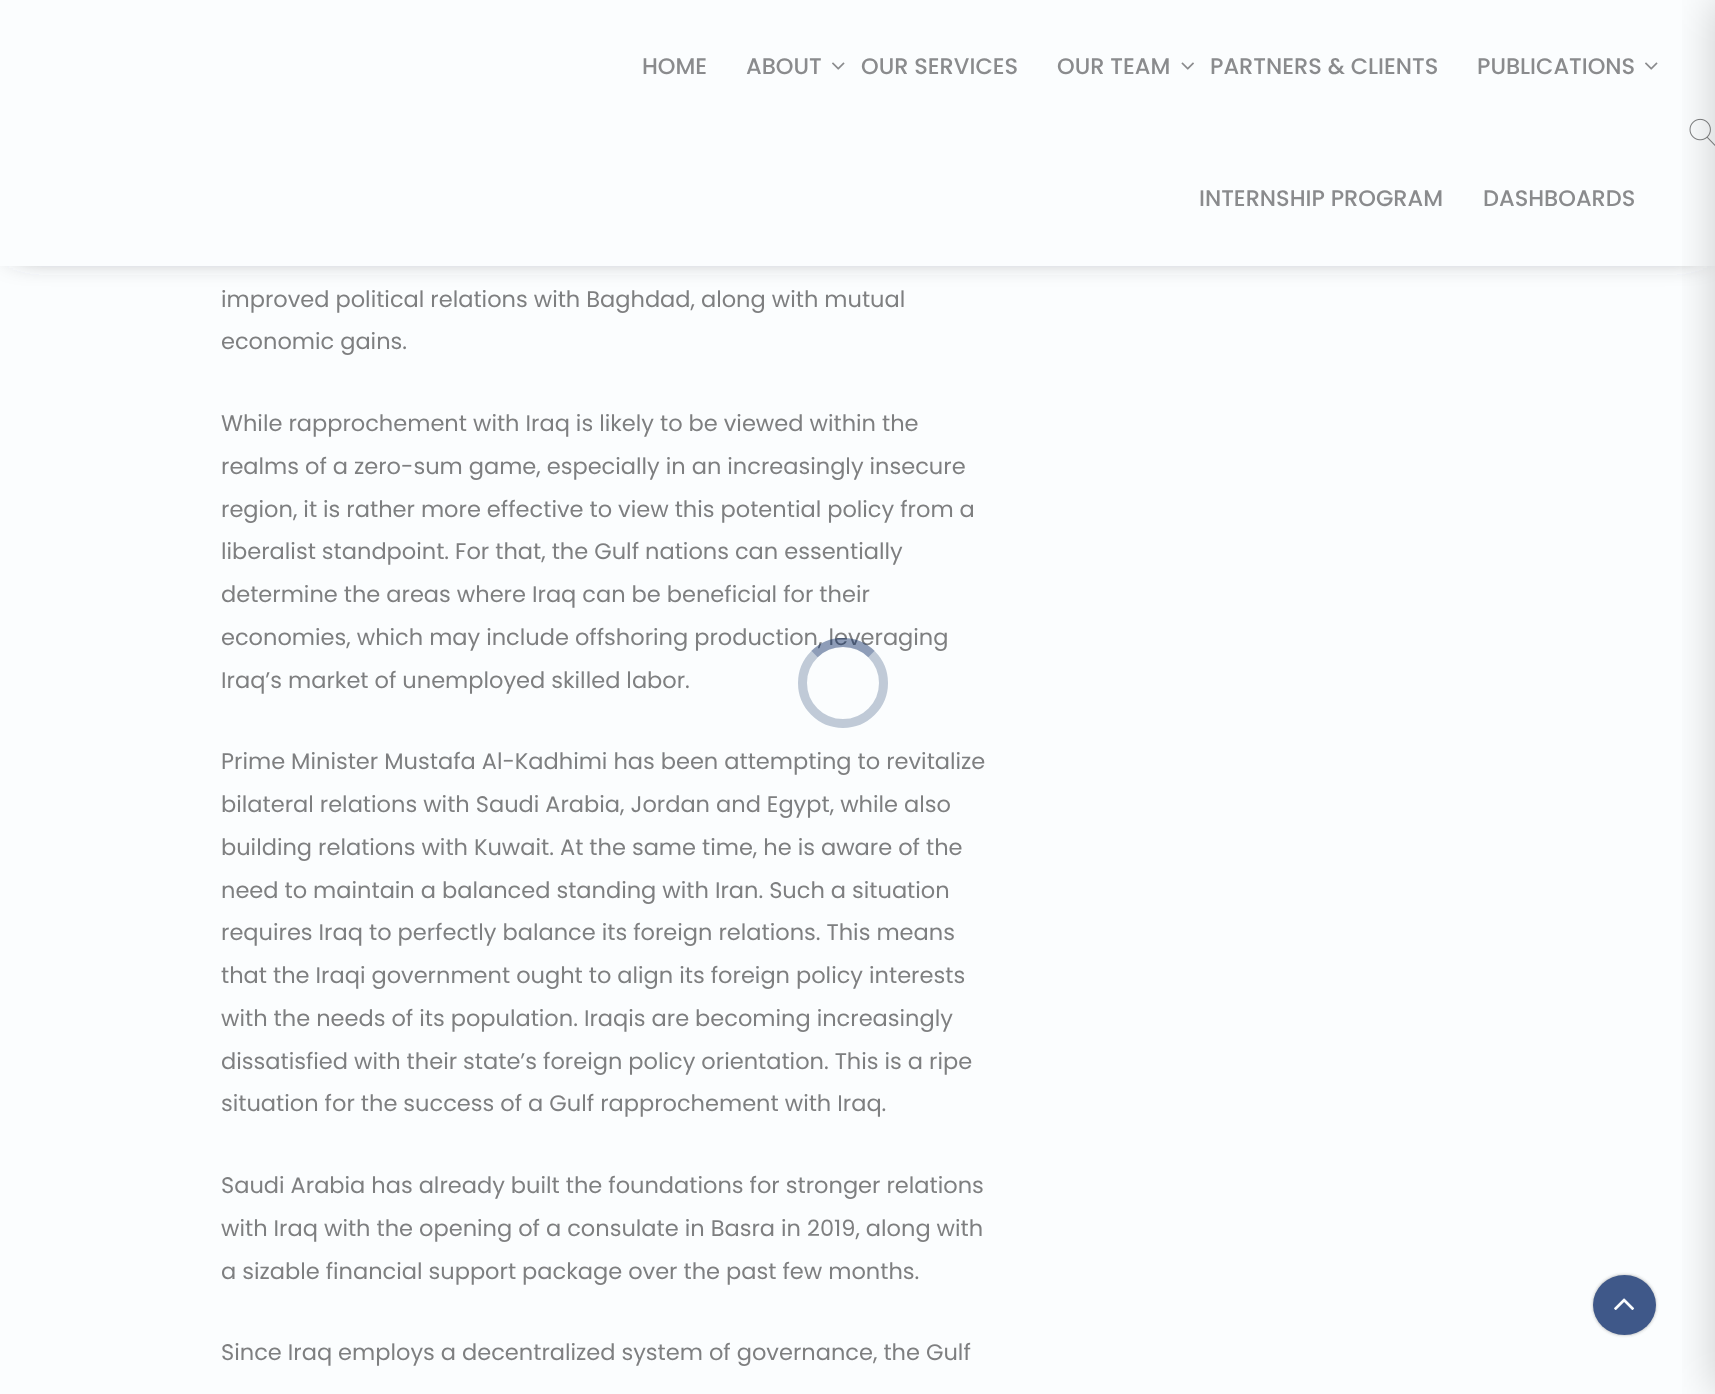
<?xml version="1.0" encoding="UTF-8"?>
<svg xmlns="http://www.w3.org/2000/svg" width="1715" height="1394">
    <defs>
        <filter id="blur1" x="-50%" y="-200%" width="200%" height="500%"><feGaussianBlur stdDeviation="15"/></filter>
        <filter id="blur2" x="-50%" y="-200%" width="200%" height="500%"><feGaussianBlur stdDeviation="1.5"/></filter>
        <filter id="blur3" x="-50%" y="-200%" width="200%" height="500%"><feGaussianBlur stdDeviation="22.5"/></filter>
    </defs>
    <rect width="100%" height="100%" fill="#FBFDFE"/>
    <rect x="15" y="15" width="1686" height="236" fill="#3F4042" fill-opacity="0.8" filter="url(#blur1)"/>
    <rect x="0" y="0" width="1715" height="266" fill="#FBFDFE"/>
    <text x="642" y="74" font-family="Poppins" font-size="22.5" font-weight="500" fill="#8A8B8D">HOME</text>
    <text x="746" y="74" font-family="Poppins" font-size="22.5" font-weight="500" fill="#8A8B8D">ABOUT</text>
    <image x="832" y="62" width="13" height="8" href="img_01.png"/>
    <text x="861" y="74" font-family="Poppins" font-size="22.5" font-weight="500" fill="#8A8B8D">OUR SERVICES</text>
    <text x="1057" y="74" font-family="Poppins" font-size="22.5" font-weight="500" fill="#8A8B8D">OUR TEAM</text>
    <image x="1181" y="62" width="13" height="8" href="img_02.png"/>
    <text x="1210" y="74" font-family="Poppins" font-size="22.5" font-weight="500" fill="#8A8B8D">PARTNERS &amp; CLIENTS</text>
    <text x="1477" y="74" font-family="Poppins" font-size="22.5" font-weight="500" fill="#8A8B8D">PUBLICATIONS</text>
    <image x="1645" y="62" width="13" height="8" href="img_01.png"/>
    <text x="1199" y="206" font-family="Poppins" font-size="22.5" font-weight="500" fill="#8A8B8D">INTERNSHIP PROGRAM</text>
    <text x="1483" y="206" font-family="Poppins" font-size="22.5" font-weight="500" fill="#8A8B8D">DASHBOARDS</text>
    <image x="1689" y="118" width="26" height="28" href="img_03.png"/>
    <rect x="1593" y="1275" width="63" height="60" rx="30" fill="#3F4042" fill-opacity="0.4" filter="url(#blur2)"/>
    <ellipse cx="1624.5" cy="1305" rx="31.5" ry="30" fill="#3F5889"/>
    <rect x="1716" y="-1" width="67" height="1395" fill="#000000" fill-opacity="0.2" filter="url(#blur3)"/>
    <text font-family="Poppins" font-size="22.5" fill="#7E7F80">
        <tspan x="221" y="307">improved political relations with Baghdad, along with mutual</tspan>
        <tspan x="221" y="349">economic gains.</tspan>
    </text>
    <text font-family="Poppins" font-size="22.5" fill="#7E7F80">
        <tspan x="221" y="431">While rapprochement with Iraq is likely to be viewed within the</tspan>
        <tspan x="221" y="474">realms of a zero-sum game, especially in an increasingly insecure</tspan>
        <tspan x="221" y="517">region, it is rather more effective to view this potential policy from a</tspan>
        <tspan x="221" y="559">liberalist standpoint. For that, the Gulf nations can essentially</tspan>
        <tspan x="221" y="602">determine the areas where Iraq can be beneficial for their</tspan>
        <tspan x="221" y="645">economies, which may include offshoring production, leveraging</tspan>
        <tspan x="221" y="688">Iraq’s market of unemployed skilled labor.</tspan>
    </text>
    <text font-family="Poppins" font-size="22.5" fill="#7E7F80">
        <tspan x="221" y="769">Prime Minister Mustafa Al-Kadhimi has been attempting to revitalize</tspan>
        <tspan x="221" y="812">bilateral relations with Saudi Arabia, Jordan and Egypt, while also</tspan>
        <tspan x="221" y="855">building relations with Kuwait. At the same time, he is aware of the</tspan>
        <tspan x="221" y="898">need to maintain a balanced standing with Iran. Such a situation</tspan>
        <tspan x="221" y="940">requires Iraq to perfectly balance its foreign relations. This means</tspan>
        <tspan x="221" y="983">that the Iraqi government ought to align its foreign policy interests</tspan>
        <tspan x="221" y="1026">with the needs of its population. Iraqis are becoming increasingly</tspan>
        <tspan x="221" y="1069">dissatisfied with their state’s foreign policy orientation. This is a ripe</tspan>
        <tspan x="221" y="1111">situation for the success of a Gulf rapprochement with Iraq.</tspan>
    </text>
    <text font-family="Poppins" font-size="22.5" fill="#7E7F80">
        <tspan x="221" y="1193">Saudi Arabia has already built the foundations for stronger relations</tspan>
        <tspan x="221" y="1236">with Iraq with the opening of a consulate in Basra in 2019, along with</tspan>
        <tspan x="221" y="1279">a sizable financial support package over the past few months.</tspan>
    </text>
    <text x="221" y="1360" font-family="Poppins" font-size="22.5" fill="#7E7F80">Since Iraq employs a decentralized system of governance, the Gulf</text>
    <circle cx="843" cy="683" r="40.5" fill="none" stroke="#173969" stroke-opacity="0.26" stroke-width="9"/>
    <path d="M 814.5 654 C 830 638.5 856 638.5 871.5 654" fill="none" stroke="#002060" stroke-opacity="0.26" stroke-width="9"/>
    <image x="1614" y="1298" width="21" height="12" href="img_04.png"/>
</svg>
